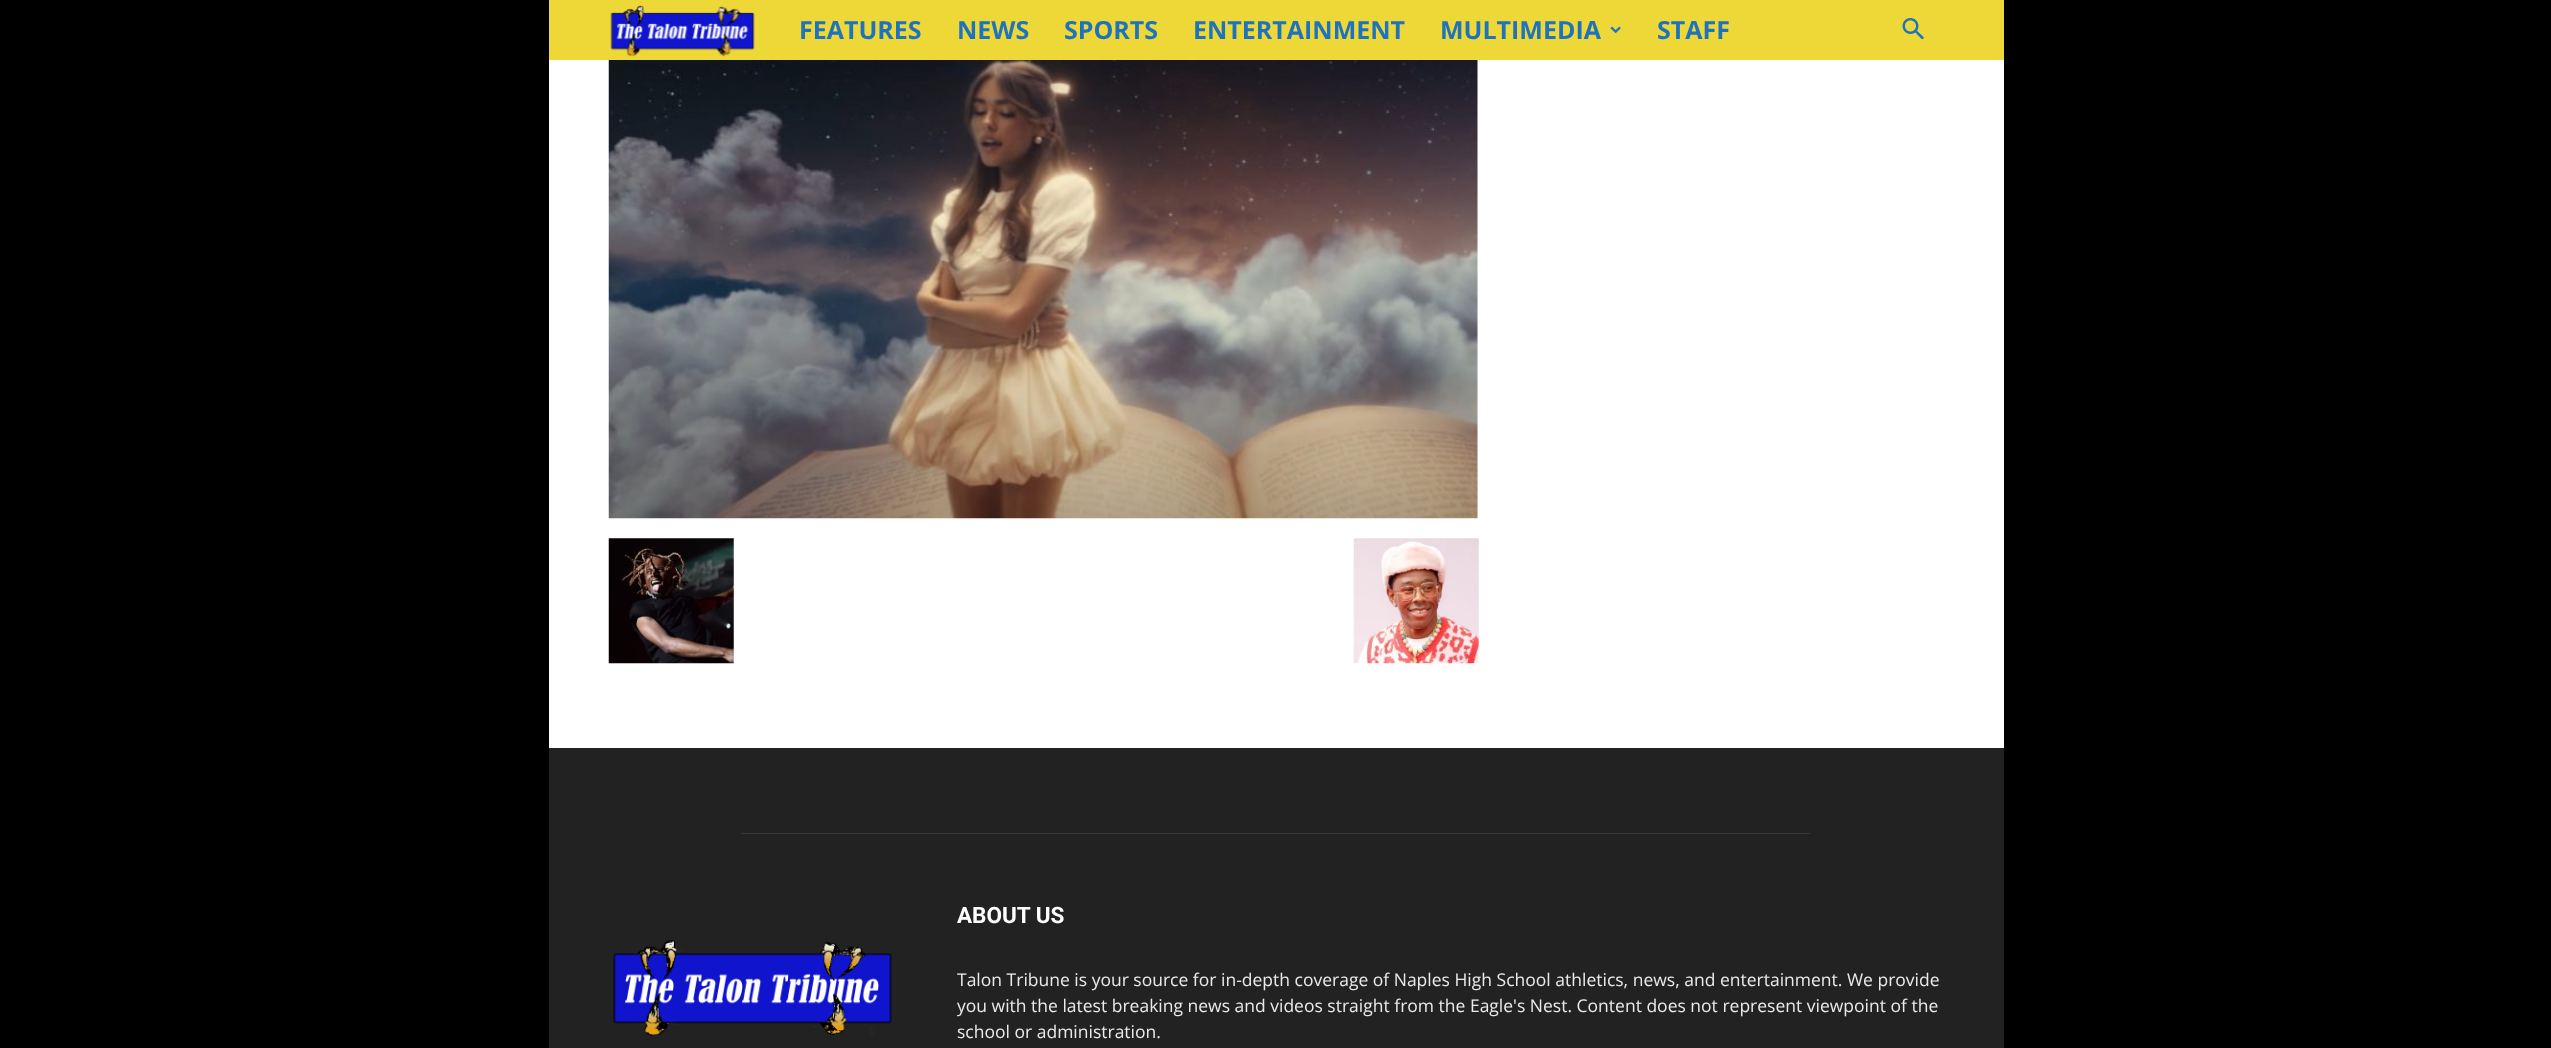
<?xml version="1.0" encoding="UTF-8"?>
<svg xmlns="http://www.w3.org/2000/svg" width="2551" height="1048">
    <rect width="100%" height="100%" fill="#000000"/>
    <rect x="549" y="0" width="1455" height="60" fill="#EDD838"/>
    <image x="610" y="5" width="145" height="52" href="img_01.png"/>
    <text x="799" y="39" font-family="Open Sans" font-size="25" font-weight="700" fill="#1E73BE">FEATURES</text>
    <text x="957" y="39" font-family="Open Sans" font-size="25" font-weight="700" fill="#1E73BE">NEWS</text>
    <text x="1064" y="39" font-family="Open Sans" font-size="25" font-weight="700" fill="#1E73BE">SPORTS</text>
    <text x="1193" y="39" font-family="Open Sans" font-size="25" font-weight="700" fill="#1E73BE">ENTERTAINMENT</text>
    <text x="1440" y="39" font-family="Open Sans" font-size="25" font-weight="700" fill="#1E73BE">MULTIMEDIA</text>
    <image x="1610" y="26" width="11" height="8" href="img_02.png"/>
    <text x="1657" y="39" font-family="Open Sans" font-size="25" font-weight="700" fill="#1E73BE">STAFF</text>
    <image x="1902" y="18" width="22" height="22" href="img_03.png"/>
    <rect x="549" y="60" width="1455" height="688" fill="#FFFFFF"/>
    <image x="608" y="60" width="870" height="459" href="img_04.png"/>
    <image x="608" y="538" width="126" height="126" href="img_05.png"/>
    <image x="1353" y="538" width="126" height="126" href="img_06.png"/>
    <rect x="549" y="748" width="1455" height="300" fill="#222222"/>
    <rect x="741" y="833" width="1069" height="1" fill="#383838"/>
    <image x="613" y="940" width="279" height="97" href="img_07.png"/>
    <text x="957" y="923" font-family="Roboto" font-size="22.5" font-weight="700" fill="#FFFFFF">ABOUT US</text>
    <text font-family="Open Sans" font-size="17.5" fill="#EAEAEA">
        <tspan x="957" y="986">Talon Tribune is your source for in-depth coverage of Naples High School athletics, news, and entertainment. We provide</tspan>
        <tspan x="957" y="1012">you with the latest breaking news and videos straight from the Eagle's Nest. Content does not represent viewpoint of the</tspan>
        <tspan x="957" y="1038">school or administration.</tspan>
    </text>
</svg>
